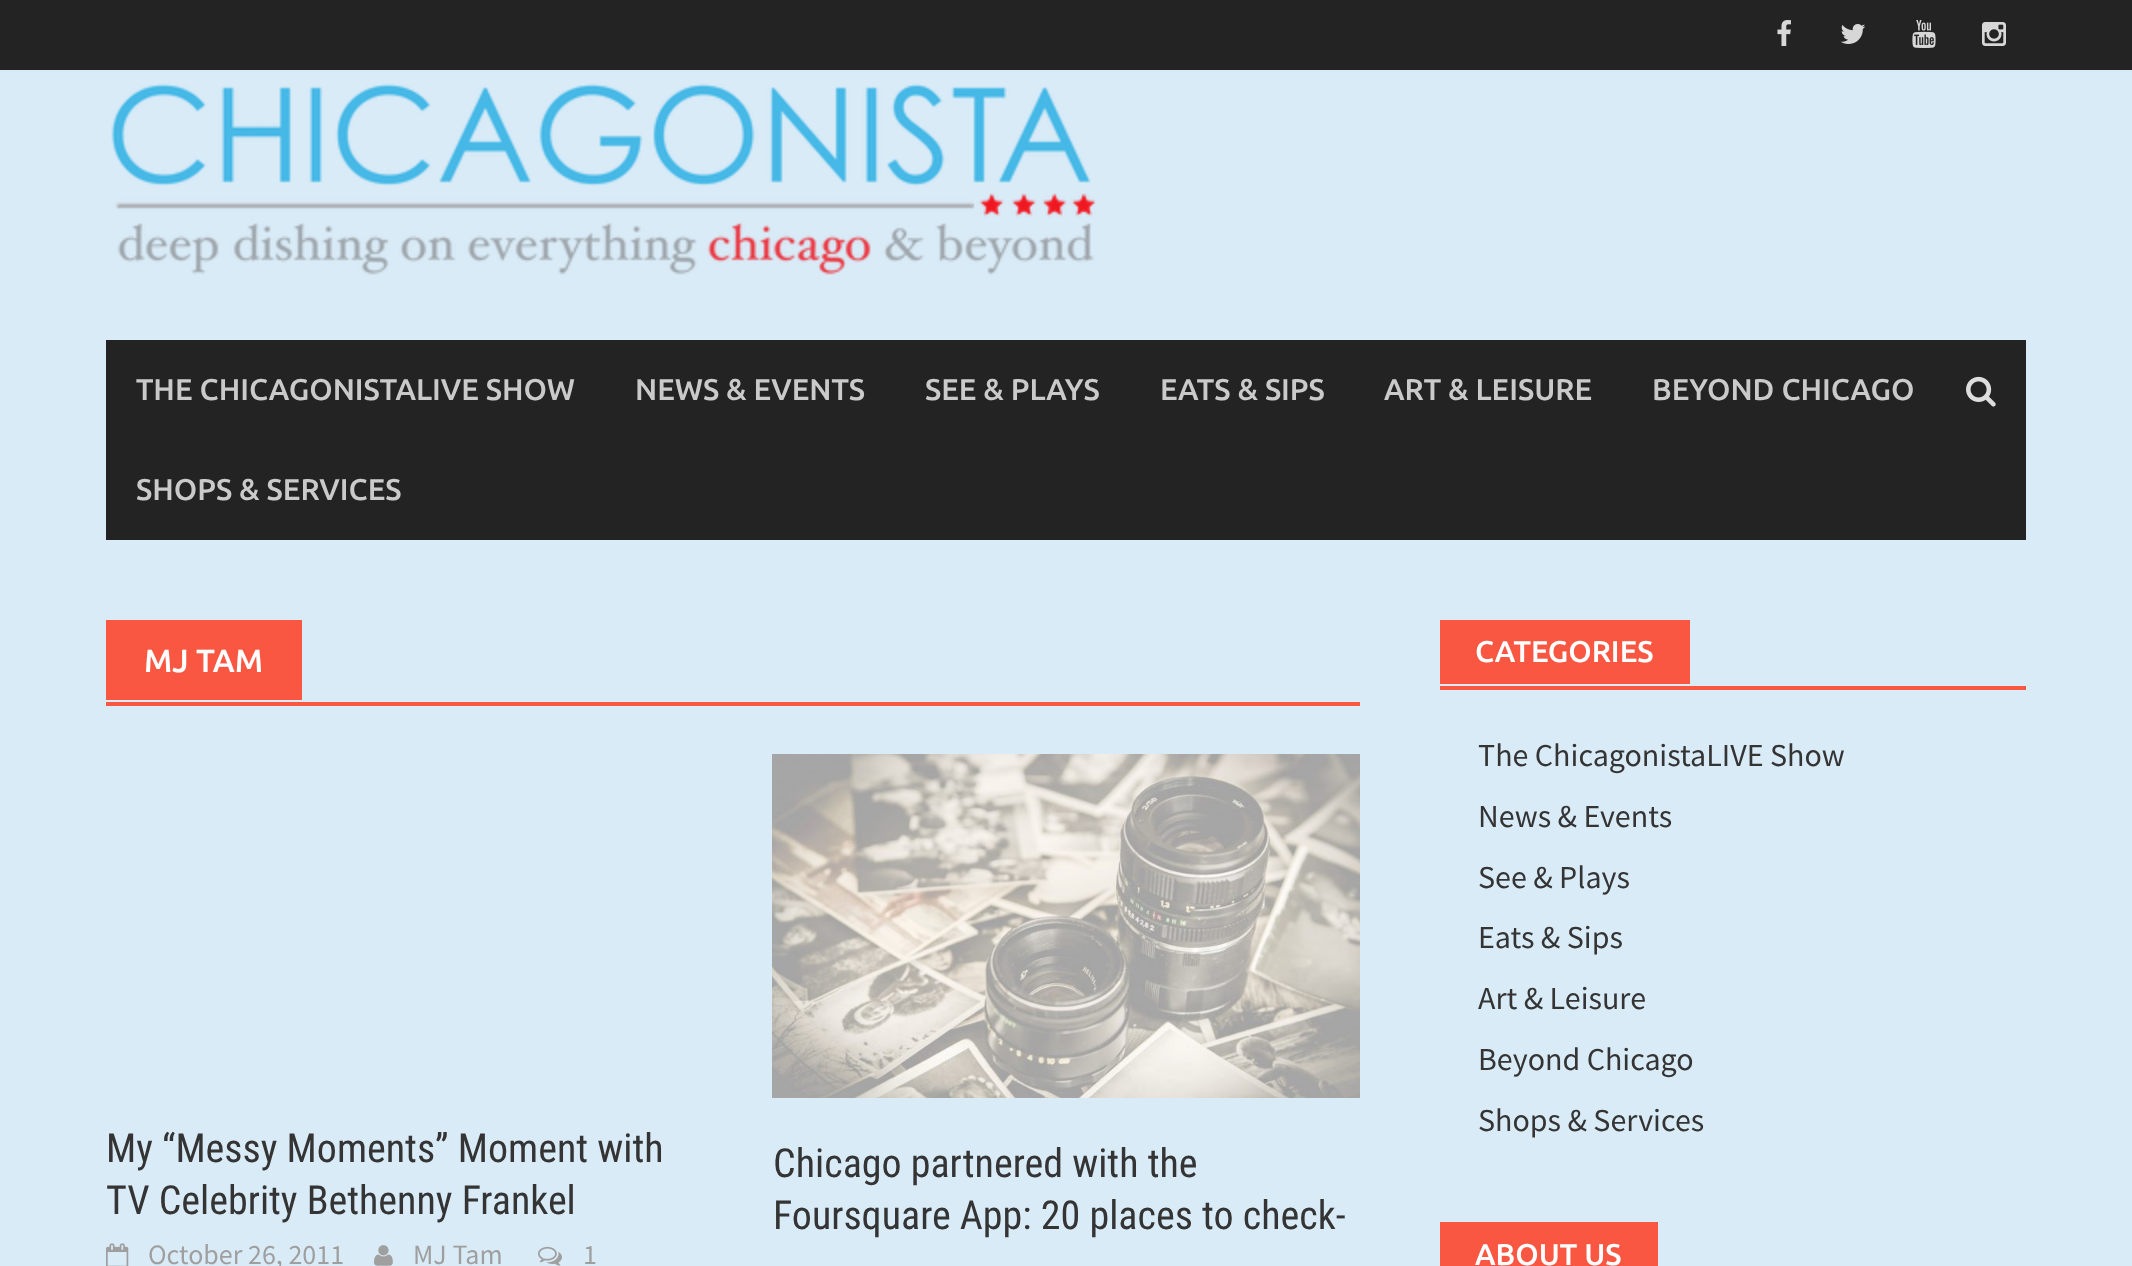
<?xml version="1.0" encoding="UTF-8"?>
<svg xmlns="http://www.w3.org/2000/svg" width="2132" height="1266">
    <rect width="100%" height="100%" fill="#D9EBF7"/>
    <rect x="0" y="0" width="2132" height="70" fill="#232323"/>
    <image x="1777" y="20" width="14" height="26" href="img_01.png"/>
    <image x="1840" y="24" width="26" height="20" href="img_02.png"/>
    <image x="1912" y="20" width="24" height="28" href="img_03.png"/>
    <image x="1982" y="22" width="24" height="24" href="img_04.png"/>
    <image x="111" y="83" width="985" height="192" href="img_05.png"/>
    <rect x="106" y="340" width="1920" height="200" fill="#232323"/>
    <text x="136" y="400" font-family="Ubuntu" font-size="30" font-weight="500" fill="#CACACA">THE CHICAGONISTALIVE SHOW</text>
    <text x="635" y="400" font-family="Ubuntu" font-size="30" font-weight="500" fill="#CACACA">NEWS &amp; EVENTS</text>
    <text x="925" y="400" font-family="Ubuntu" font-size="30" font-weight="500" fill="#CACACA">SEE &amp; PLAYS</text>
    <text x="1160" y="400" font-family="Ubuntu" font-size="30" font-weight="500" fill="#CACACA">EATS &amp; SIPS</text>
    <text x="1384" y="400" font-family="Ubuntu" font-size="30" font-weight="500" fill="#CACACA">ART &amp; LEISURE</text>
    <text x="1652" y="400" font-family="Ubuntu" font-size="30" font-weight="500" fill="#CACACA">BEYOND CHICAGO</text>
    <text x="136" y="500" font-family="Ubuntu" font-size="30" font-weight="500" fill="#CACACA">SHOPS &amp; SERVICES</text>
    <image x="1966" y="376" width="30" height="31" href="img_06.png"/>
    <rect x="106" y="702" width="1254" height="4" fill="#FA5742"/>
    <rect x="106" y="620" width="196" height="80" fill="#FA5742"/>
    <text x="144" y="672" font-family="Ubuntu" font-size="32" font-weight="500" fill="#FFFFFF">MJ TAM</text>
    <text font-family="Roboto Condensed" font-size="40" fill="#353434">
        <tspan x="106" y="1162">My “Messy Moments” Moment with</tspan>
        <tspan x="106" y="1214">TV Celebrity Bethenny Frankel</tspan>
    </text>
    <image x="106" y="1243" width="23" height="23" href="img_07.png"/>
    <text x="148" y="1264" font-family="Source Sans Pro" font-size="28" fill="#9F9F9F">October 26, 2011</text>
    <image x="374" y="1245" width="19" height="21" href="img_08.png"/>
    <text x="413" y="1264" font-family="Source Sans Pro" font-size="28" fill="#9F9F9F">MJ Tam</text>
    <image x="538" y="1246" width="24" height="20" href="img_09.png"/>
    <text x="583" y="1264" font-family="Source Sans Pro" font-size="28" fill="#9F9F9F">1</text>
    <image x="772" y="754" width="588" height="344" href="img_10.png"/>
    <text font-family="Roboto Condensed" font-size="40" fill="#353434">
        <tspan x="773" y="1177">Chicago partnered with the</tspan>
        <tspan x="773" y="1229">Foursquare App: 20 places to check-</tspan>
    </text>
    <rect x="1440" y="686" width="586" height="4" fill="#FA5742"/>
    <rect x="1440" y="620" width="250" height="64" fill="#FA5742"/>
    <text x="1475" y="662" font-family="Ubuntu" font-size="30" font-weight="500" fill="#FFFFFF">CATEGORIES</text>
    <text font-family="Source Sans Pro" font-size="32" fill="#353434">
        <tspan x="1478" y="766">The ChicagonistaLIVE Show</tspan>
        <tspan x="1478" y="827">News &amp; Events</tspan>
        <tspan x="1478" y="888">See &amp; Plays</tspan>
        <tspan x="1478" y="948">Eats &amp; Sips</tspan>
        <tspan x="1478" y="1009">Art &amp; Leisure</tspan>
        <tspan x="1478" y="1070">Beyond Chicago</tspan>
        <tspan x="1478" y="1131">Shops &amp; Services</tspan>
    </text>
    <rect x="1440" y="1222" width="218" height="44" fill="#FA5742"/>
    <text x="1475" y="1265" font-family="Ubuntu" font-size="30" font-weight="500" fill="#FFFFFF">ABOUT US</text>
</svg>
